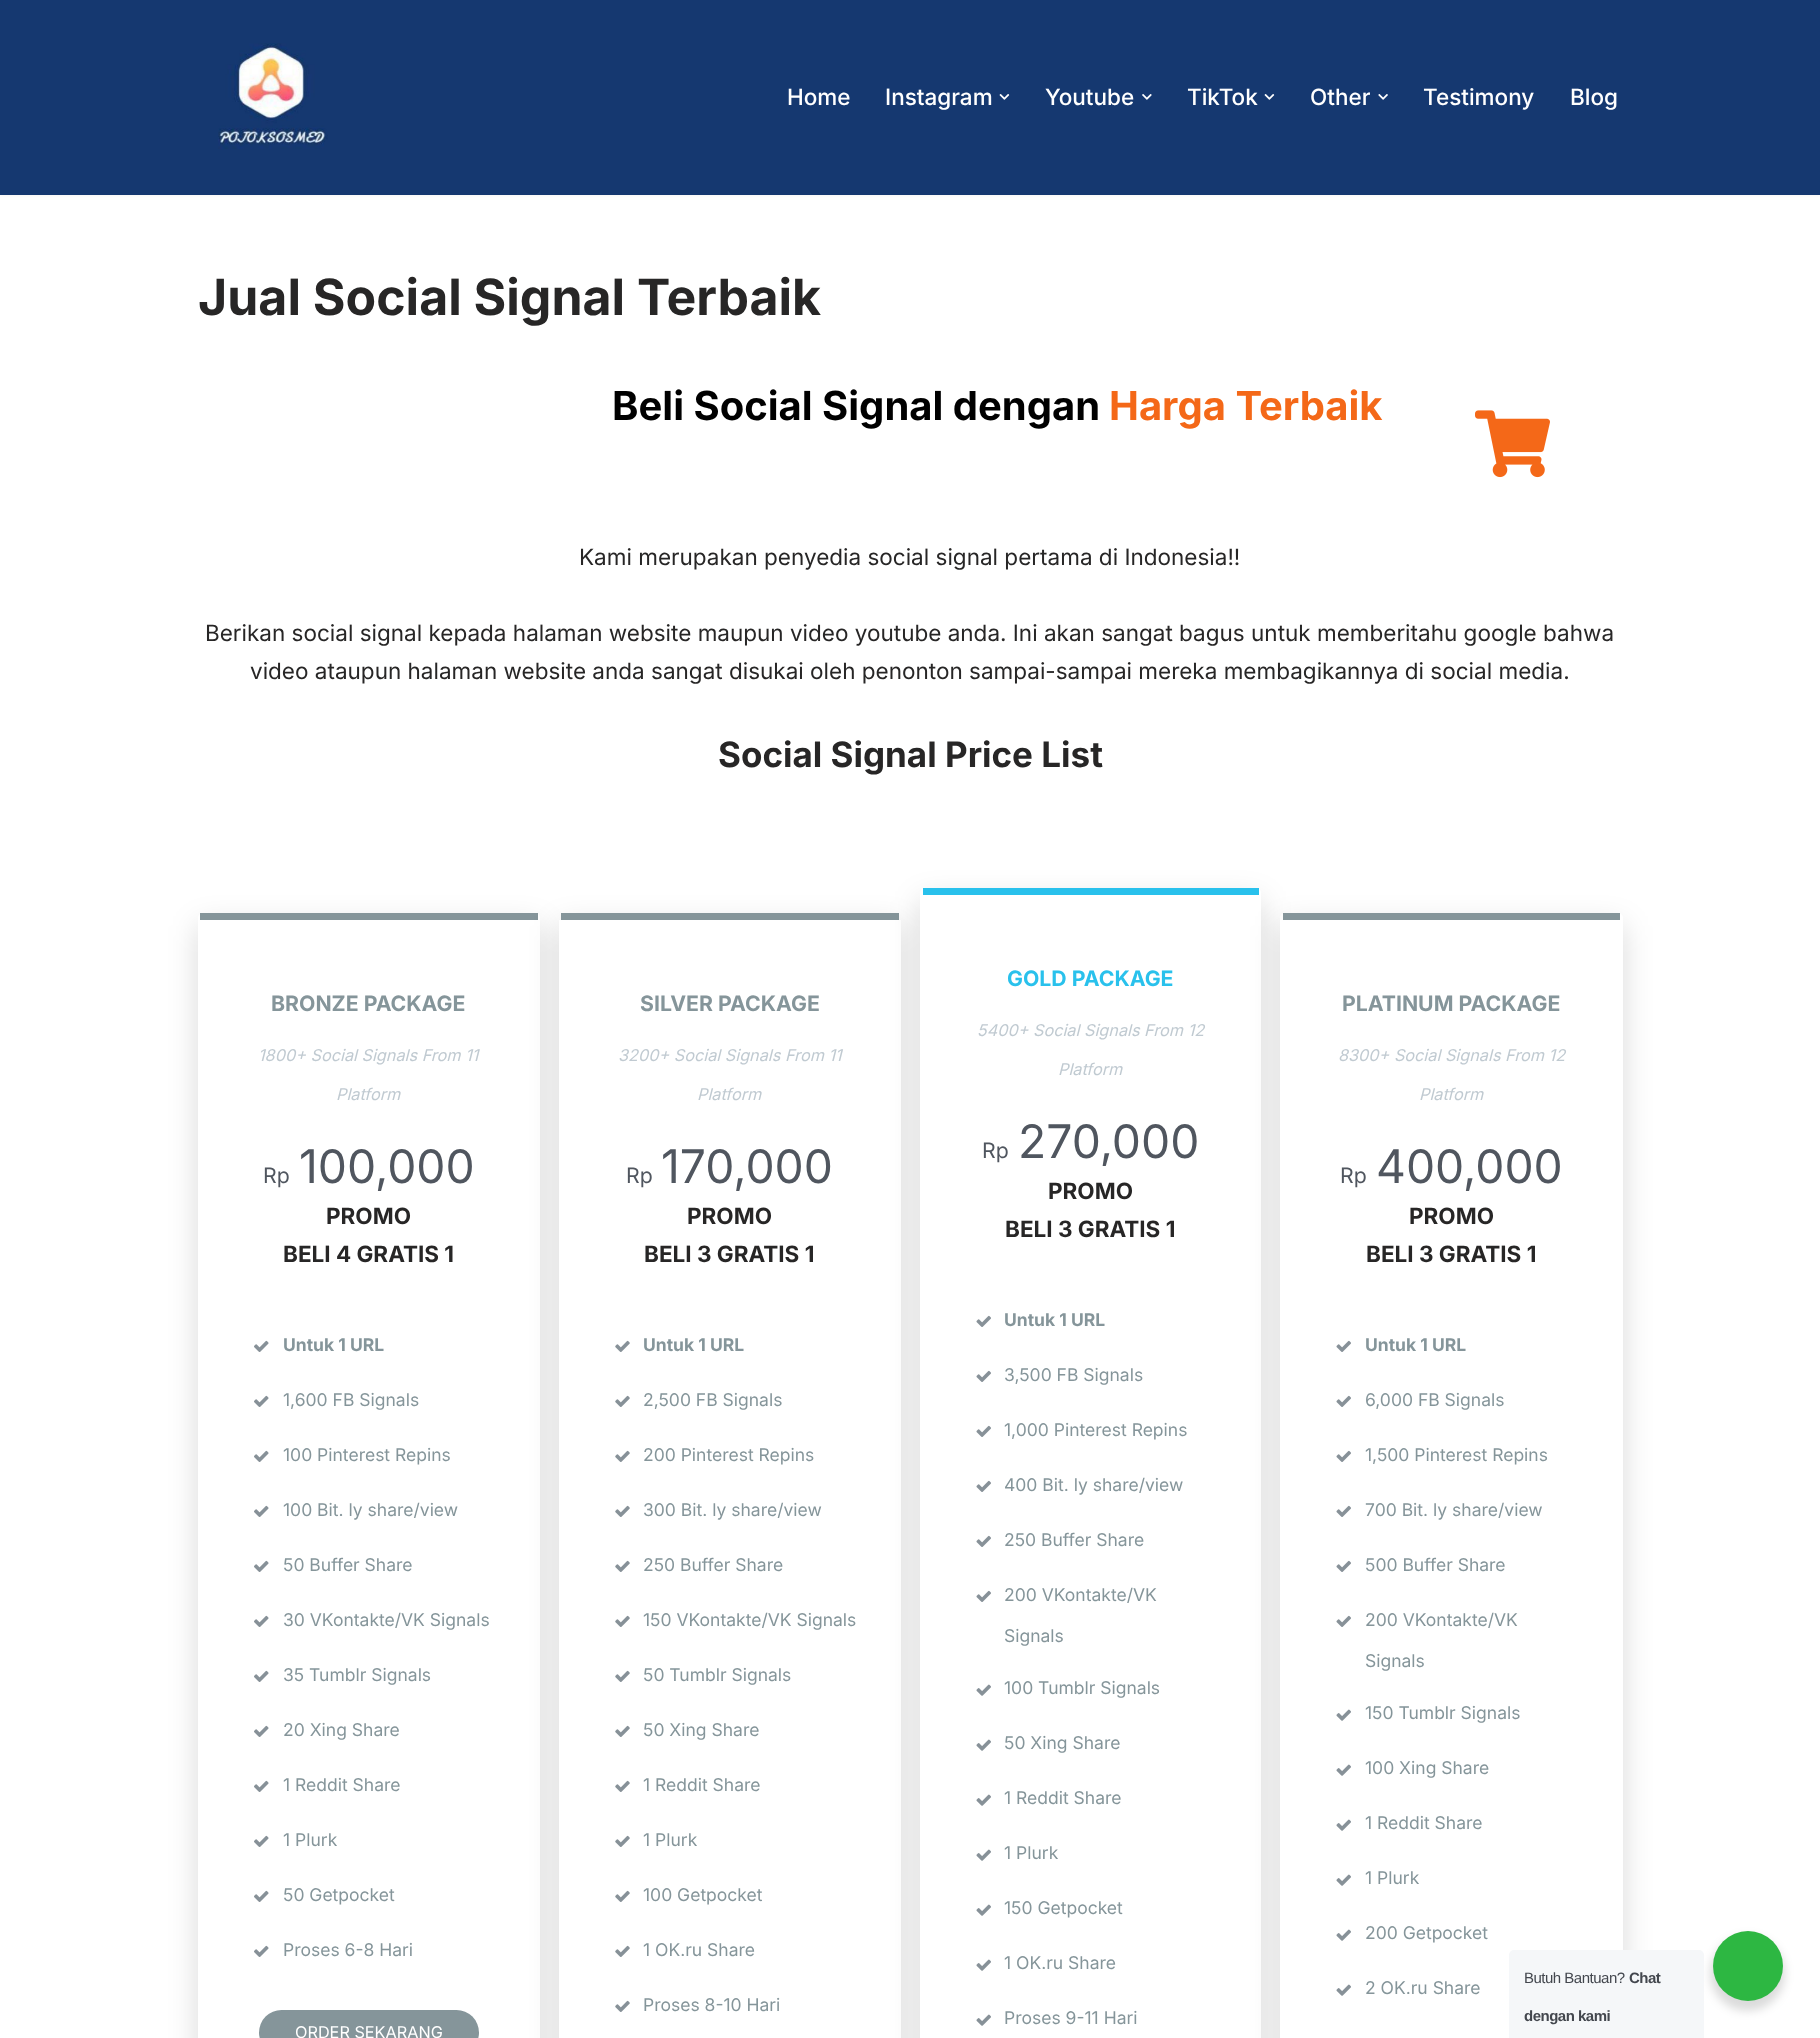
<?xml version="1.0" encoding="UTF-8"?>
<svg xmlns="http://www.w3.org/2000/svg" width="1820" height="2038">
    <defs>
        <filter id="blur1" x="-50%" y="-200%" width="200%" height="500%"><feGaussianBlur stdDeviation="2"/></filter>
        <clipPath id="clip1"><path d="M 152 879 H 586 V 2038 H 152 Z M 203 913 H 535 C 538 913 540 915 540 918 V 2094 C 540 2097 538 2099 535 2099 H 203 C 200 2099 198 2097 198 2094 V 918 C 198 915 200 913 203 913 Z" clip-rule="evenodd"/></clipPath>
        <filter id="blur2" x="-50%" y="-200%" width="200%" height="500%"><feGaussianBlur stdDeviation="15"/></filter>
        <clipPath id="clip2"><path d="M 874 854 H 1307 V 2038 H 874 Z M 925 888 H 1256 C 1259 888 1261 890 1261 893 V 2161 C 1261 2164 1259 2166 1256 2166 H 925 C 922 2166 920 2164 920 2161 V 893 C 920 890 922 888 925 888 Z" clip-rule="evenodd"/></clipPath>
        <clipPath id="clip3"><path d="M 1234 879 H 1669 V 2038 H 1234 Z M 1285 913 H 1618 C 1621 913 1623 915 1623 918 V 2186 C 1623 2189 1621 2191 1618 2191 H 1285 C 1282 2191 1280 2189 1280 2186 V 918 C 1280 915 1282 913 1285 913 Z" clip-rule="evenodd"/></clipPath>
        <filter id="blur3" x="-50%" y="-200%" width="200%" height="500%"><feGaussianBlur stdDeviation="5"/></filter>
    </defs>
    <rect width="100%" height="100%" fill="#FFFFFF"/>
    <rect x="0" y="-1" width="1820" height="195" fill="#000000" fill-opacity="0.1" filter="url(#blur1)"/>
    <rect x="0" y="0" width="1820" height="195" fill="#153870"/>
    <image x="218" y="43" width="110" height="106" href="img_01.png"/>
    <text x="787" y="105" font-family="Inter" font-size="22.5" font-weight="500" fill="#FFFFFF">Home</text>
    <text x="885" y="105" font-family="Inter" font-size="22.5" font-weight="500" fill="#FFFFFF">Instagram</text>
    <image x="999" y="94" width="11" height="6" href="img_02.png"/>
    <text x="1045" y="105" font-family="Inter" font-size="22.5" font-weight="500" fill="#FFFFFF">Youtube</text>
    <image x="1142" y="94" width="10" height="6" href="img_03.png"/>
    <text x="1187" y="105" font-family="Inter" font-size="22.5" font-weight="500" fill="#FFFFFF">TikTok</text>
    <image x="1264" y="94" width="11" height="6" href="img_02.png"/>
    <text x="1310" y="105" font-family="Inter" font-size="22.5" font-weight="500" fill="#FFFFFF">Other</text>
    <image x="1378" y="94" width="10" height="6" href="img_04.png"/>
    <text x="1423" y="105" font-family="Inter" font-size="22.5" font-weight="500" fill="#FFFFFF">Testimony</text>
    <text x="1570" y="105" font-family="Inter" font-size="22.5" font-weight="500" fill="#FFFFFF">Blog</text>
    <text x="198" y="315" font-family="Inter" font-size="50" font-weight="700" fill="#272626">Jual Social Signal Terbaik</text>
    <text x="612" y="420" font-family="Inter" font-size="40" font-weight="700" fill="#000000">Beli Social Signal dengan</text>
    <text x="1109" y="420" font-family="Inter" font-size="40" font-weight="700" fill="#F46818">Harga Terbaik</text>
    <image x="1475" y="410" width="75" height="68" href="img_05.png"/>
    <text x="579" y="565" font-family="Inter" font-size="22.5" fill="#272626">Kami merupakan penyedia social signal pertama di Indonesia!!</text>
    <text x="205" y="641" font-family="Inter" font-size="22.5" fill="#272626">Berikan social signal kepada halaman website maupun video youtube anda. Ini akan sangat bagus untuk memberitahu google bahwa</text>
    <text x="250" y="679" font-family="Inter" font-size="22.5" fill="#272626">video ataupun halaman website anda sangat disukai oleh penonton sampai-sampai mereka membagikannya di social media.</text>
    <text x="718" y="767" font-family="Inter" font-size="35" font-weight="700" fill="#272626">Social Signal Price List</text>
    <g clip-path="url(#clip1)">
        <rect x="198" y="925" width="342" height="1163" rx="5" fill="#000000" fill-opacity="0.15" filter="url(#blur2)"/>
    </g>
    <rect x="200" y="913" width="338" height="7" fill="#85959A"/>
    <text x="271" y="1011" font-family="Inter" font-size="21.25" font-weight="700" fill="#85959A">BRONZE PACKAGE</text>
    <text x="258" y="1061" font-family="Inter" font-size="16.25" font-style="italic" fill="#C0CAD1">1800+ Social Signals From 11</text>
    <text x="336" y="1100" font-family="Inter" font-size="16.25" font-style="italic" fill="#C0CAD1">Platform</text>
    <text x="263" y="1183" font-family="Inter" font-size="21.25" fill="#50565F">Rp</text>
    <text x="299" y="1183" font-family="Inter" font-size="46.25" fill="#50565F">100,000</text>
    <text x="326" y="1224" font-family="Inter" font-size="22.5" font-weight="700" fill="#272626">PROMO</text>
    <text x="283" y="1262" font-family="Inter" font-size="22.5" font-weight="700" fill="#272626">BELI 4 GRATIS 1</text>
    <image x="254" y="1340" width="15" height="12" href="img_06.png"/>
    <text x="283" y="1351" font-family="Inter" font-size="17.5" font-weight="700" fill="#85959A">Untuk 1 URL</text>
    <image x="254" y="1395" width="15" height="12" href="img_06.png"/>
    <text x="283" y="1406" font-family="Inter" font-size="17.5" fill="#85959A">1,600 FB Signals</text>
    <image x="254" y="1450" width="15" height="12" href="img_06.png"/>
    <text x="283" y="1461" font-family="Inter" font-size="17.5" fill="#85959A">100 Pinterest Repins</text>
    <image x="254" y="1505" width="15" height="12" href="img_06.png"/>
    <text x="283" y="1516" font-family="Inter" font-size="17.5" fill="#85959A">100 Bit. ly share/view</text>
    <image x="254" y="1560" width="15" height="12" href="img_06.png"/>
    <text x="283" y="1571" font-family="Inter" font-size="17.5" fill="#85959A">50 Buffer Share</text>
    <image x="254" y="1615" width="15" height="12" href="img_06.png"/>
    <text x="283" y="1626" font-family="Inter" font-size="17.5" fill="#85959A">30 VKontakte/VK Signals</text>
    <image x="254" y="1670" width="15" height="12" href="img_06.png"/>
    <text x="283" y="1681" font-family="Inter" font-size="17.5" fill="#85959A">35 Tumblr Signals</text>
    <image x="254" y="1725" width="15" height="12" href="img_06.png"/>
    <text x="283" y="1736" font-family="Inter" font-size="17.5" fill="#85959A">20 Xing Share</text>
    <image x="254" y="1780" width="15" height="12" href="img_06.png"/>
    <text x="283" y="1791" font-family="Inter" font-size="17.5" fill="#85959A">1 Reddit Share</text>
    <image x="254" y="1835" width="15" height="12" href="img_06.png"/>
    <text x="283" y="1846" font-family="Inter" font-size="17.5" fill="#85959A">1 Plurk</text>
    <image x="254" y="1890" width="15" height="12" href="img_06.png"/>
    <text x="283" y="1901" font-family="Inter" font-size="17.5" fill="#85959A">50 Getpocket</text>
    <image x="254" y="1945" width="15" height="12" href="img_06.png"/>
    <text x="283" y="1956" font-family="Inter" font-size="17.5" fill="#85959A">Proses 6-8 Hari</text>
    <rect x="259" y="2010" width="220" height="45" rx="22.5" fill="#85959A"/>
    <text x="295" y="2038" font-family="Inter" font-size="16.25" fill="#FFFFFF">ORDER SEKARANG</text>
    <rect x="559" y="925" width="342" height="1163" rx="5" fill="#000000" fill-opacity="0.15" filter="url(#blur2)"/>
    <path d="M 564 920 H 901 V 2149 C 901 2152 899 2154 896 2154 H 564 C 561 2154 559 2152 559 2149 V 920 Z" fill="#FFFFFF"/>
    <rect x="561" y="913" width="338" height="7" fill="#85959A"/>
    <text x="640" y="1011" font-family="Inter" font-size="21.25" font-weight="700" fill="#85959A">SILVER PACKAGE</text>
    <text x="618" y="1061" font-family="Inter" font-size="16.25" font-style="italic" fill="#C0CAD1">3200+ Social Signals From 11</text>
    <text x="697" y="1100" font-family="Inter" font-size="16.25" font-style="italic" fill="#C0CAD1">Platform</text>
    <text x="626" y="1183" font-family="Inter" font-size="21.25" fill="#50565F">Rp</text>
    <text x="661" y="1183" font-family="Inter" font-size="46.25" fill="#50565F">170,000</text>
    <text x="687" y="1224" font-family="Inter" font-size="22.5" font-weight="700" fill="#272626">PROMO</text>
    <text x="644" y="1262" font-family="Inter" font-size="22.5" font-weight="700" fill="#272626">BELI 3 GRATIS 1</text>
    <image x="615" y="1340" width="15" height="12" href="img_07.png"/>
    <text x="643" y="1351" font-family="Inter" font-size="17.5" font-weight="700" fill="#85959A">Untuk 1 URL</text>
    <image x="615" y="1395" width="15" height="12" href="img_07.png"/>
    <text x="643" y="1406" font-family="Inter" font-size="17.5" fill="#85959A">2,500 FB Signals</text>
    <image x="615" y="1450" width="15" height="12" href="img_07.png"/>
    <text x="643" y="1461" font-family="Inter" font-size="17.5" fill="#85959A">200 Pinterest Repins</text>
    <image x="615" y="1505" width="15" height="12" href="img_07.png"/>
    <text x="643" y="1516" font-family="Inter" font-size="17.5" fill="#85959A">300 Bit. ly share/view</text>
    <image x="615" y="1560" width="15" height="12" href="img_07.png"/>
    <text x="643" y="1571" font-family="Inter" font-size="17.5" fill="#85959A">250 Buffer Share</text>
    <image x="615" y="1615" width="15" height="12" href="img_07.png"/>
    <text x="643" y="1626" font-family="Inter" font-size="17.5" fill="#85959A">150 VKontakte/VK Signals</text>
    <image x="615" y="1670" width="15" height="12" href="img_07.png"/>
    <text x="643" y="1681" font-family="Inter" font-size="17.5" fill="#85959A">50 Tumblr Signals</text>
    <image x="615" y="1725" width="15" height="12" href="img_07.png"/>
    <text x="643" y="1736" font-family="Inter" font-size="17.5" fill="#85959A">50 Xing Share</text>
    <image x="615" y="1780" width="15" height="12" href="img_07.png"/>
    <text x="643" y="1791" font-family="Inter" font-size="17.5" fill="#85959A">1 Reddit Share</text>
    <image x="615" y="1835" width="15" height="12" href="img_07.png"/>
    <text x="643" y="1846" font-family="Inter" font-size="17.5" fill="#85959A">1 Plurk</text>
    <image x="615" y="1890" width="15" height="12" href="img_07.png"/>
    <text x="643" y="1901" font-family="Inter" font-size="17.5" fill="#85959A">100 Getpocket</text>
    <image x="615" y="1945" width="15" height="12" href="img_07.png"/>
    <text x="643" y="1956" font-family="Inter" font-size="17.5" fill="#85959A">1 OK.ru Share</text>
    <image x="615" y="2000" width="15" height="12" href="img_07.png"/>
    <text x="643" y="2011" font-family="Inter" font-size="17.5" fill="#85959A">Proses 8-10 Hari</text>
    <g clip-path="url(#clip2)">
        <rect x="920" y="900" width="341" height="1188" rx="5" fill="#000000" fill-opacity="0.15" filter="url(#blur2)"/>
    </g>
    <path d="M 925 895 H 1261 V 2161 C 1261 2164 1259 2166 1256 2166 H 925 C 922 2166 920 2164 920 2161 V 895 Z" fill="#FFFFFF"/>
    <rect x="923" y="888" width="336" height="7" fill="#29C1EC"/>
    <text x="1007" y="986" font-family="Inter" font-size="21.25" font-weight="700" fill="#29C1EC">GOLD PACKAGE</text>
    <text x="977" y="1036" font-family="Inter" font-size="16.25" font-style="italic" fill="#C0CAD1">5400+ Social Signals From 12</text>
    <text x="1058" y="1075" font-family="Inter" font-size="16.25" font-style="italic" fill="#C0CAD1">Platform</text>
    <text x="982" y="1158" font-family="Inter" font-size="21.25" fill="#50565F">Rp</text>
    <text x="1018" y="1158" font-family="Inter" font-size="46.25" fill="#50565F">270,000</text>
    <text x="1048" y="1199" font-family="Inter" font-size="22.5" font-weight="700" fill="#272626">PROMO</text>
    <text x="1005" y="1237" font-family="Inter" font-size="22.5" font-weight="700" fill="#272626">BELI 3 GRATIS 1</text>
    <image x="976" y="1315" width="15" height="12" href="img_08.png"/>
    <text x="1004" y="1326" font-family="Inter" font-size="17.5" font-weight="700" fill="#85959A">Untuk 1 URL</text>
    <image x="976" y="1370" width="15" height="12" href="img_08.png"/>
    <text x="1004" y="1381" font-family="Inter" font-size="17.5" fill="#85959A">3,500 FB Signals</text>
    <image x="976" y="1425" width="15" height="12" href="img_08.png"/>
    <text x="1004" y="1436" font-family="Inter" font-size="17.5" fill="#85959A">1,000 Pinterest Repins</text>
    <image x="976" y="1480" width="15" height="12" href="img_08.png"/>
    <text x="1004" y="1491" font-family="Inter" font-size="17.5" fill="#85959A">400 Bit. ly share/view</text>
    <image x="976" y="1535" width="15" height="12" href="img_08.png"/>
    <text x="1004" y="1546" font-family="Inter" font-size="17.5" fill="#85959A">250 Buffer Share</text>
    <image x="976" y="1590" width="15" height="12" href="img_08.png"/>
    <text x="1004" y="1601" font-family="Inter" font-size="17.5" fill="#85959A">200 VKontakte/VK</text>
    <text x="1004" y="1642" font-family="Inter" font-size="17.5" fill="#85959A">Signals</text>
    <image x="976" y="1684" width="15" height="12" href="img_09.png"/>
    <text x="1004" y="1694" font-family="Inter" font-size="17.5" fill="#85959A">100 Tumblr Signals</text>
    <image x="976" y="1739" width="15" height="12" href="img_09.png"/>
    <text x="1004" y="1749" font-family="Inter" font-size="17.5" fill="#85959A">50 Xing Share</text>
    <image x="976" y="1794" width="15" height="12" href="img_09.png"/>
    <text x="1004" y="1804" font-family="Inter" font-size="17.5" fill="#85959A">1 Reddit Share</text>
    <image x="976" y="1849" width="15" height="12" href="img_09.png"/>
    <text x="1004" y="1859" font-family="Inter" font-size="17.5" fill="#85959A">1 Plurk</text>
    <image x="976" y="1904" width="15" height="12" href="img_09.png"/>
    <text x="1004" y="1914" font-family="Inter" font-size="17.5" fill="#85959A">150 Getpocket</text>
    <image x="976" y="1959" width="15" height="12" href="img_09.png"/>
    <text x="1004" y="1969" font-family="Inter" font-size="17.5" fill="#85959A">1 OK.ru Share</text>
    <image x="976" y="2014" width="15" height="12" href="img_09.png"/>
    <text x="1004" y="2024" font-family="Inter" font-size="17.5" fill="#85959A">Proses 9-11 Hari</text>
    <g clip-path="url(#clip3)">
        <rect x="1280" y="925" width="343" height="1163" rx="5" fill="#000000" fill-opacity="0.15" filter="url(#blur2)"/>
    </g>
    <path d="M 1285 920 H 1622 V 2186 C 1622 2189 1620 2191 1618 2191 H 1285 C 1282 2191 1280 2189 1280 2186 V 920 Z" fill="#FFFFFF"/>
    <rect x="1283" y="913" width="337" height="7" fill="#85959A"/>
    <text x="1342" y="1011" font-family="Inter" font-size="21.25" font-weight="700" fill="#85959A">PLATINUM PACKAGE</text>
    <text x="1338" y="1061" font-family="Inter" font-size="16.25" font-style="italic" fill="#C0CAD1">8300+ Social Signals From 12</text>
    <text x="1419" y="1100" font-family="Inter" font-size="16.25" font-style="italic" fill="#C0CAD1">Platform</text>
    <text x="1340" y="1183" font-family="Inter" font-size="21.25" fill="#50565F">Rp</text>
    <text x="1376" y="1183" font-family="Inter" font-size="46.25" fill="#50565F">400,000</text>
    <text x="1409" y="1224" font-family="Inter" font-size="22.5" font-weight="700" fill="#272626">PROMO</text>
    <text x="1366" y="1262" font-family="Inter" font-size="22.5" font-weight="700" fill="#272626">BELI 3 GRATIS 1</text>
    <image x="1336" y="1340" width="15" height="12" href="img_08.png"/>
    <text x="1365" y="1351" font-family="Inter" font-size="17.5" font-weight="700" fill="#85959A">Untuk 1 URL</text>
    <image x="1336" y="1395" width="15" height="12" href="img_08.png"/>
    <text x="1365" y="1406" font-family="Inter" font-size="17.5" fill="#85959A">6,000 FB Signals</text>
    <image x="1336" y="1450" width="15" height="12" href="img_08.png"/>
    <text x="1365" y="1461" font-family="Inter" font-size="17.5" fill="#85959A">1,500 Pinterest Repins</text>
    <image x="1336" y="1505" width="15" height="12" href="img_08.png"/>
    <text x="1365" y="1516" font-family="Inter" font-size="17.5" fill="#85959A">700 Bit. ly share/view</text>
    <image x="1336" y="1560" width="15" height="12" href="img_08.png"/>
    <text x="1365" y="1571" font-family="Inter" font-size="17.5" fill="#85959A">500 Buffer Share</text>
    <image x="1336" y="1615" width="15" height="12" href="img_08.png"/>
    <text x="1365" y="1626" font-family="Inter" font-size="17.5" fill="#85959A">200 VKontakte/VK</text>
    <text x="1365" y="1667" font-family="Inter" font-size="17.5" fill="#85959A">Signals</text>
    <image x="1336" y="1709" width="15" height="12" href="img_09.png"/>
    <text x="1365" y="1719" font-family="Inter" font-size="17.5" fill="#85959A">150 Tumblr Signals</text>
    <image x="1336" y="1764" width="15" height="12" href="img_09.png"/>
    <text x="1365" y="1774" font-family="Inter" font-size="17.5" fill="#85959A">100 Xing Share</text>
    <image x="1336" y="1819" width="15" height="12" href="img_09.png"/>
    <text x="1365" y="1829" font-family="Inter" font-size="17.5" fill="#85959A">1 Reddit Share</text>
    <image x="1336" y="1874" width="15" height="12" href="img_09.png"/>
    <text x="1365" y="1884" font-family="Inter" font-size="17.5" fill="#85959A">1 Plurk</text>
    <image x="1336" y="1929" width="15" height="12" href="img_09.png"/>
    <text x="1365" y="1939" font-family="Inter" font-size="17.5" fill="#85959A">200 Getpocket</text>
    <image x="1336" y="1984" width="15" height="12" href="img_09.png"/>
    <text x="1365" y="1994" font-family="Inter" font-size="17.5" fill="#85959A">2 OK.ru Share</text>
    <rect x="1710" y="1936" width="75" height="75" rx="37.5" fill="#000000" fill-opacity="0.14" filter="url(#blur3)"/>
    <rect x="1509" y="1950" width="195" height="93" rx="5" fill="#F5F7F9"/>
    <text x="1524" y="1983" font-family="Liberation Sans" font-size="15" letter-spacing="-0.5" fill="#43474E">Butuh Bantuan?</text>
    <text x="1629" y="1983" font-family="Liberation Sans" font-size="15" font-weight="700" letter-spacing="-0.5" fill="#43474E">Chat</text>
    <text x="1524" y="2021" font-family="Liberation Sans" font-size="15" font-weight="700" letter-spacing="-0.5" fill="#43474E">dengan kami</text>
    <circle cx="1748" cy="1966" r="35" fill="#2DB742"/>
</svg>
